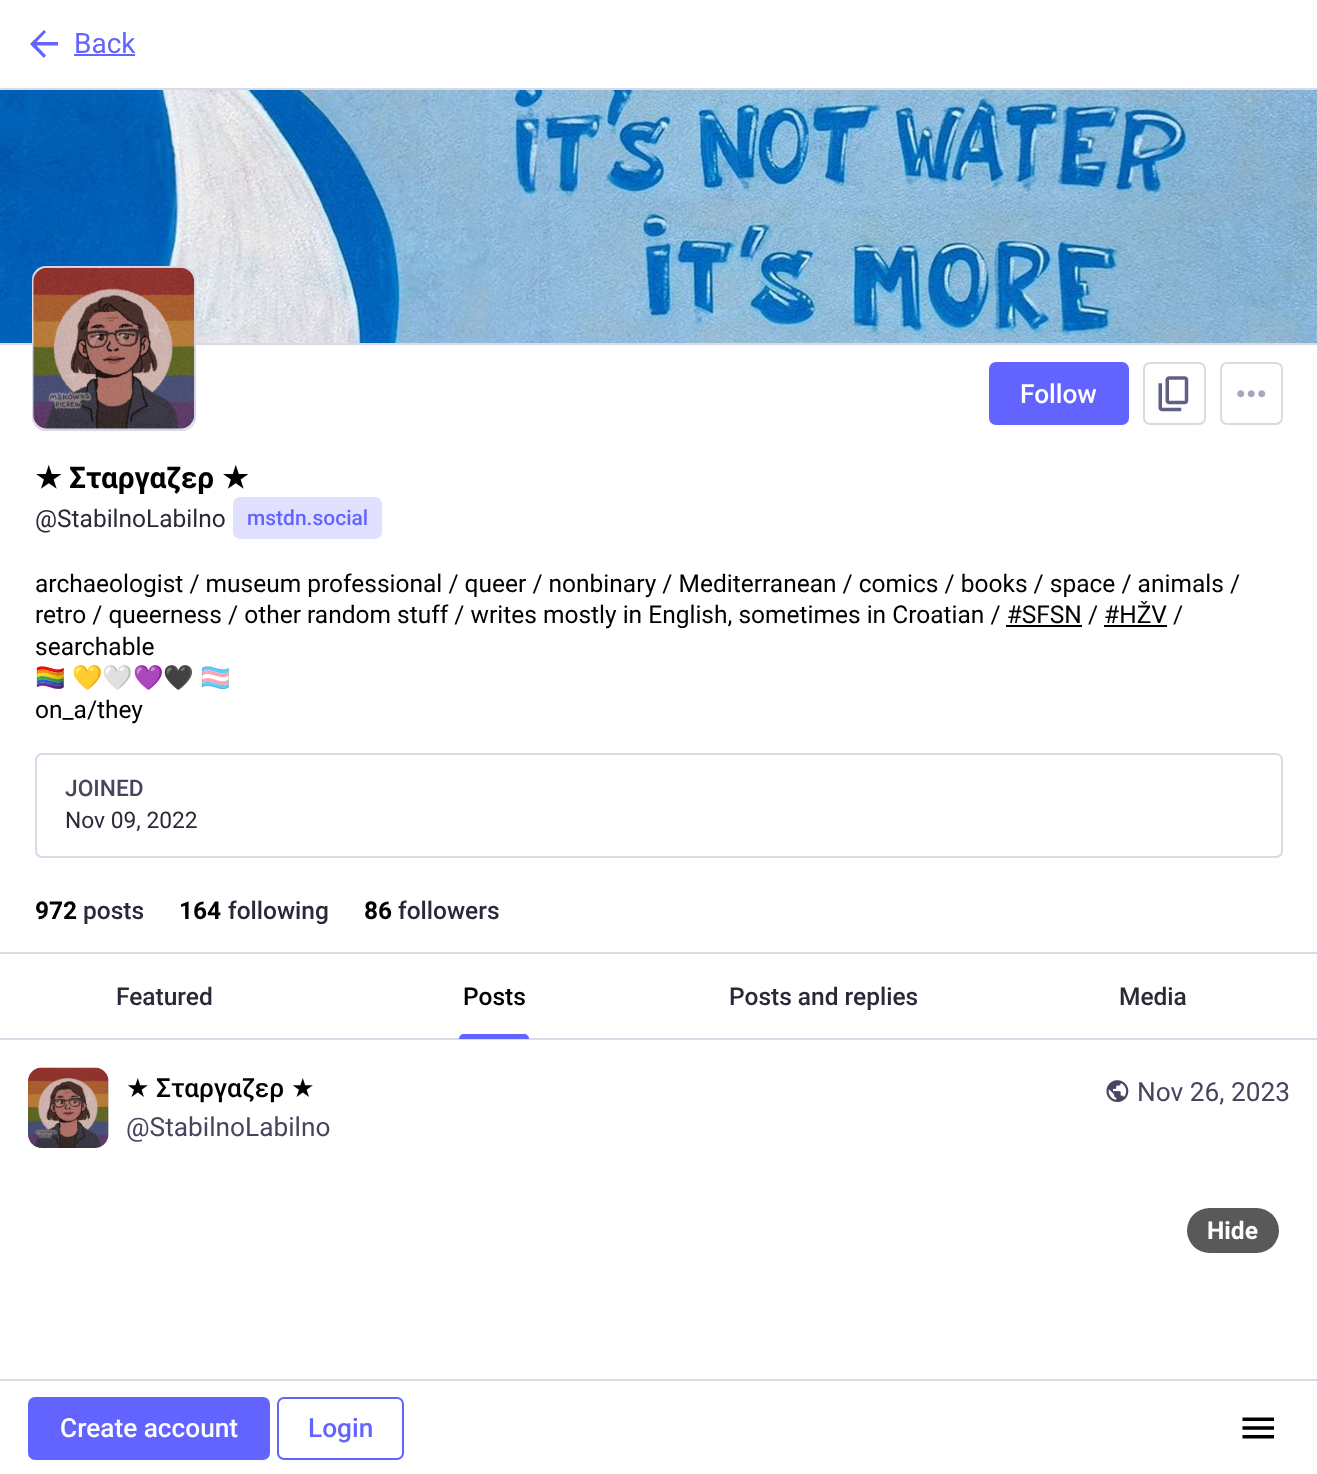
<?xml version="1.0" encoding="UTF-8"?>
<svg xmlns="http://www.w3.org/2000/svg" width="1317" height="1474">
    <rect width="100%" height="100%" fill="#FFFFFF"/>
    <rect x="0" y="88" width="1317" height="2" fill="#D9D9E8"/>
    <path d="M 36.5 45.5 L 46 55.5 L 44 58 L 30 44 L 44 30 L 46 32 L 36.5 42 H 58 V 45.5 Z" fill="#6364FF"/>
    <text x="74" y="53" font-family="Roboto" font-size="28" fill="#6364FF">Back</text>
    <rect x="74" y="54" width="61" height="2" fill="#6364FF"/>
    <rect x="0" y="343" width="1317" height="2" fill="#D9D9E8"/>
    <image x="0" y="90" width="1317" height="253" href="img_01.png"/>
    <rect x="0" y="952" width="1317" height="2" fill="#D9D9E8"/>
    <rect x="33" y="267" width="162" height="163" rx="13" fill="#FFFFFF" stroke="#D9D9E8" stroke-width="2"/>
    <image x="33" y="267" width="162" height="162" href="img_02.png"/>
    <rect x="989" y="362" width="140" height="63" rx="7" fill="#6364FF"/>
    <text x="1020" y="403" font-family="Roboto" font-size="26.25" font-weight="500" fill="#FFFFFF">Follow</text>
    <rect x="1144" y="363" width="61" height="61" rx="6" fill="none" stroke="#D9D9E8" stroke-width="2"/>
    <image x="1158" y="376" width="31" height="36" href="img_03.png"/>
    <rect x="1221" y="363" width="61" height="61" rx="6" fill="none" stroke="#D9D9E8" stroke-width="2"/>
    <image x="1237" y="390" width="29" height="8" href="img_04.png"/>
    <text x="35" y="488" font-family="DejaVu Sans" font-size="29.75" font-weight="700" fill="#000000">★</text>
    <text x="69" y="488" font-family="Roboto" font-size="29.75" font-weight="700" fill="#000000">Σταργαζερ</text>
    <text x="222" y="488" font-family="DejaVu Sans" font-size="29.75" font-weight="700" fill="#000000">★</text>
    <text x="35" y="527" font-family="Roboto" font-size="24.5" fill="#292938">@StabilnoLabilno</text>
    <rect x="233" y="497" width="149" height="42" rx="7" fill="#E0E0FF"/>
    <text x="247" y="525" font-family="Roboto" font-size="21" font-weight="500" fill="#6364FF">mstdn.social</text>
    <text font-family="Roboto" font-size="24.5" fill="#000000">
        <tspan x="35" y="592">archaeologist / museum professional / queer / nonbinary / Mediterranean / comics / books / space / animals /</tspan>
        <tspan x="35" y="623">retro / queerness / other random stuff / writes mostly in English, sometimes in Croatian / #SFSN / #HŽV /</tspan>
    </text>
    <rect x="1006" y="625" width="76" height="2" fill="#000000"/>
    <rect x="1104" y="625" width="63" height="2" fill="#000000"/>
    <text x="35" y="655" font-family="Roboto" font-size="24.5" fill="#000000">searchable</text>
    <text x="35" y="686" font-family="Noto Color Emoji" font-size="24.5" fill="#000000">🏳️‍🌈</text>
    <text x="72" y="686" font-family="Noto Color Emoji" font-size="24.5" fill="#000000">💛🤍💜🖤</text>
    <text x="200" y="686" font-family="Noto Color Emoji" font-size="24.5" fill="#000000">🏳️‍⚧️</text>
    <text x="35" y="718" font-family="Roboto" font-size="24.5" fill="#000000">on_a/they</text>
    <rect x="36" y="754" width="1246" height="103" rx="6" fill="none" stroke="#D9D9E8" stroke-width="2"/>
    <text x="65" y="796" font-family="Roboto" font-size="22.75" font-weight="500" fill="#45455F">JOINED</text>
    <text x="65" y="828" font-family="Roboto" font-size="22.75" fill="#292938">Nov 09, 2022</text>
    <text x="35" y="919" font-family="Roboto" font-size="24.5" font-weight="700" fill="#000000">972</text>
    <text x="83" y="919" font-family="Roboto" font-size="24.5" font-weight="500" fill="#292938">posts</text>
    <text x="179" y="919" font-family="Roboto" font-size="24.5" font-weight="700" fill="#000000">164</text>
    <text x="228" y="919" font-family="Roboto" font-size="24.5" font-weight="500" fill="#292938">following</text>
    <text x="364" y="919" font-family="Roboto" font-size="24.5" font-weight="700" fill="#000000">86</text>
    <text x="398" y="919" font-family="Roboto" font-size="24.5" font-weight="500" fill="#292938">followers</text>
    <rect x="0" y="1038" width="1317" height="2" fill="#D9D9E8"/>
    <text x="116" y="1005" font-family="Roboto" font-size="24.5" font-weight="500" fill="#292938">Featured</text>
    <text x="463" y="1005" font-family="Roboto" font-size="24.5" font-weight="500" fill="#000000">Posts</text>
    <path d="M 464 1034 H 524 C 527 1034 529 1036 529 1039 H 459 C 459 1036 461 1034 464 1034 Z" fill="#6364FF"/>
    <text x="729" y="1005" font-family="Roboto" font-size="24.5" font-weight="500" fill="#292938">Posts and replies</text>
    <text x="1119" y="1005" font-family="Roboto" font-size="24.5" font-weight="500" fill="#292938">Media</text>
    <rect x="28" y="1068" width="81" height="80" rx="14" fill="#E8E6F0"/>
    <image x="28" y="1067" width="81" height="81" href="img_05.png"/>
    <text x="126" y="1097" font-family="DejaVu Sans" font-size="26.25" fill="#000000">★</text>
    <text x="156" y="1097" font-family="Roboto" font-size="26.25" font-weight="500" fill="#000000">Σταργαζερ</text>
    <text x="291" y="1097" font-family="DejaVu Sans" font-size="26.25" fill="#000000">★</text>
    <text x="126" y="1136" font-family="Roboto" font-size="26.25" fill="#45455F">@StabilnoLabilno</text>
    <image x="1106" y="1080" width="23" height="23" href="img_06.png"/>
    <text x="1137" y="1101" font-family="Roboto" font-size="26.25" fill="#45455F">Nov 26, 2023</text>
    <rect x="1187" y="1208" width="92" height="45" rx="22.5" fill="#595959"/>
    <text x="1207" y="1239" font-family="Roboto" font-size="24.5" font-weight="700" fill="#FFFFFF">Hide</text>
    <rect x="0" y="1379" width="1317" height="2" fill="#D9D9E8"/>
    <rect x="28" y="1397" width="242" height="63" rx="7" fill="#6364FF"/>
    <text x="60" y="1437" font-family="Roboto" font-size="26.25" font-weight="500" fill="#FFFFFF">Create account</text>
    <rect x="278" y="1398" width="125" height="61" rx="6" fill="none" stroke="#6364FF" stroke-width="2"/>
    <text x="308" y="1437" font-family="Roboto" font-size="26.25" font-weight="500" fill="#6364FF">Login</text>
    <image x="1242" y="1417" width="32" height="22" href="img_07.png"/>
</svg>
